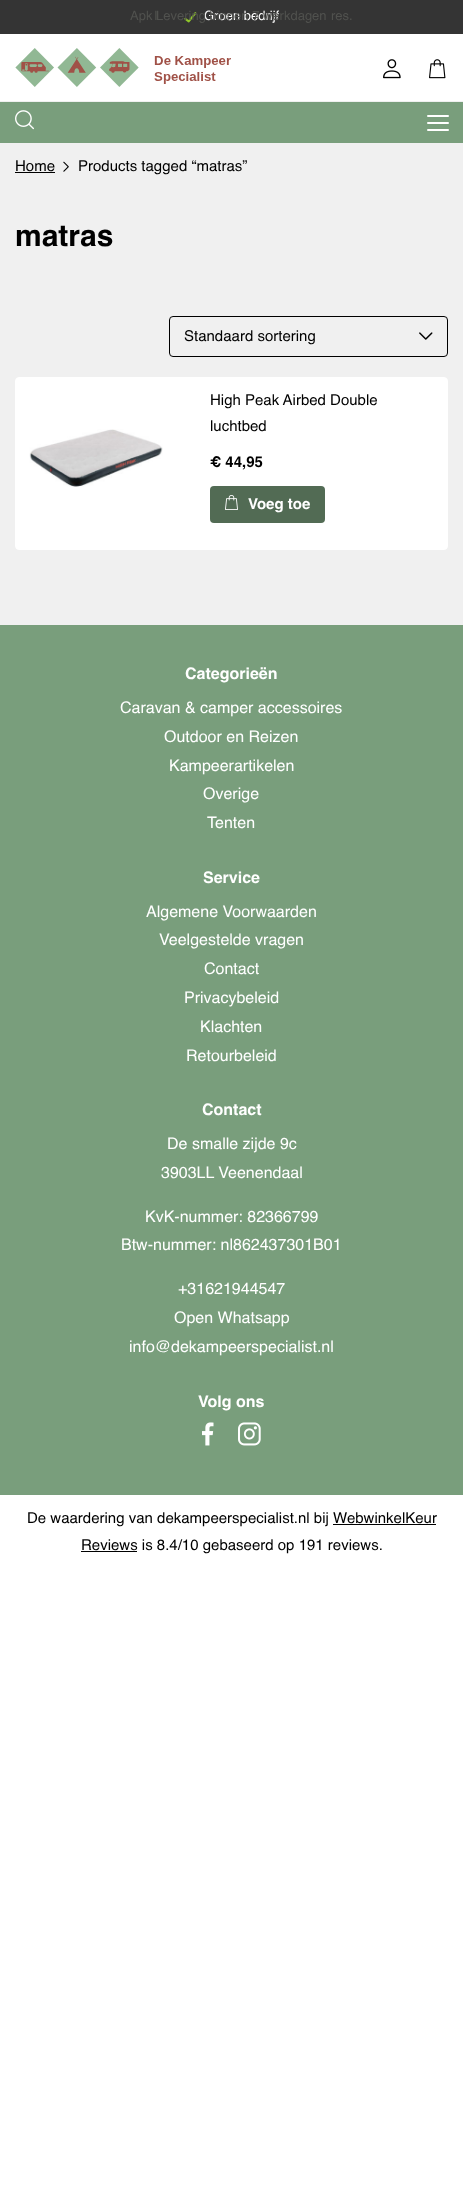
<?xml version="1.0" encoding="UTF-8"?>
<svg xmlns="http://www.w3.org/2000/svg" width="463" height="2196">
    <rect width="100%" height="100%" fill="#FFFFFF"/>
    <rect x="0" y="0" width="463" height="34" fill="#343434"/>
    <text x="130" y="20" font-family="Helvetica" font-size="13" fill="#50514E">Apk</text>
    <text x="331" y="20" font-family="Helvetica" font-size="13" fill="#50514E">res.</text>
    <text x="154" y="20" font-family="Helvetica" font-size="13" fill="#50514E">I</text>
    <image x="184" y="12" width="13" height="11" href="img_01.png"/>
    <text x="204" y="20" font-family="Helvetica" font-size="13" fill="#FFFFFF">Groen bedrijf</text>
    <text x="156" y="20" font-family="Helvetica" font-size="13" fill="#50514E">Levering binnen 7 werkdagen</text>
    <rect x="0" y="101" width="463" height="1" fill="#F0F0F0"/>
    <image x="15" y="48" width="216" height="39" href="img_02.png"/>
    <image x="383" y="59" width="18" height="20" href="img_03.png"/>
    <image x="429" y="59" width="17" height="20" href="img_04.png"/>
    <rect x="0" y="102" width="463" height="41" fill="#799E7C"/>
    <image x="15" y="110" width="19" height="20" href="img_05.png"/>
    <rect x="427" y="122" width="22" height="2" rx="1" fill="#FFFFFF"/>
    <rect x="427" y="115" width="22" height="2" rx="1" fill="#FFFFFF"/>
    <rect x="427" y="129" width="22" height="2" rx="1" fill="#FFFFFF"/>
    <rect x="0" y="143" width="463" height="482" fill="#F0F0F0"/>
    <text x="15" y="171" font-family="Helvetica" font-size="15" fill="#000000">Home</text>
    <rect x="15" y="172" width="40" height="1" fill="#000000"/>
    <image x="63" y="161" width="6" height="11" href="img_06.png"/>
    <text x="78" y="171" font-family="Helvetica" font-size="15" fill="#000000">Products tagged “matras”</text>
    <text x="15" y="246" font-family="Helvetica" font-size="30" font-weight="700" fill="#000000">matras</text>
    <rect x="169.5" y="316.5" width="278" height="40" rx="3.5" fill="none" stroke="#000000"/>
    <text x="184" y="341" font-family="Helvetica" font-size="15" fill="#000000">Standaard sortering</text>
    <image x="419" y="332" width="14" height="8" href="img_07.png"/>
    <rect x="15.5" y="377.5" width="432" height="172" rx="3.5" fill="#FFFFFF" stroke="#FFFFFF"/>
    <image x="29" y="429" width="134" height="58" href="img_08.png"/>
    <text font-family="Helvetica" font-size="15" fill="#000000">
        <tspan x="210" y="405">High Peak Airbed Double</tspan>
        <tspan x="210" y="431">luchtbed</tspan>
    </text>
    <text x="210" y="467" font-family="Helvetica" font-size="15" font-weight="700" fill="#000000">€ 44,95</text>
    <rect x="210" y="486" width="115" height="37" rx="4" fill="#526B54"/>
    <image x="225" y="495" width="13" height="15" href="img_09.png"/>
    <text x="248" y="509" font-family="Helvetica" font-size="15" font-weight="700" fill="#FFFFFF">Voeg toe</text>
    <rect x="0" y="625" width="463" height="870" fill="#799E7C"/>
    <text x="185" y="679" font-family="Helvetica" font-size="16" font-weight="700" fill="#FFFFFF">Categorieën</text>
    <text x="120" y="713" font-family="Helvetica" font-size="16" fill="#FFFFFF">Caravan &amp; camper accessoires</text>
    <text x="164" y="742" font-family="Helvetica" font-size="16" fill="#FFFFFF">Outdoor en Reizen</text>
    <text x="169" y="771" font-family="Helvetica" font-size="16" fill="#FFFFFF">Kampeerartikelen</text>
    <text x="203" y="799" font-family="Helvetica" font-size="16" fill="#FFFFFF">Overige</text>
    <text x="207" y="828" font-family="Helvetica" font-size="16" fill="#FFFFFF">Tenten</text>
    <text x="203" y="883" font-family="Helvetica" font-size="16" font-weight="700" fill="#FFFFFF">Service</text>
    <text x="146" y="917" font-family="Helvetica" font-size="16" fill="#FFFFFF">Algemene Voorwaarden</text>
    <text x="159" y="945" font-family="Helvetica" font-size="16" fill="#FFFFFF">Veelgestelde vragen</text>
    <text x="204" y="974" font-family="Helvetica" font-size="16" fill="#FFFFFF">Contact</text>
    <text x="184" y="1003" font-family="Helvetica" font-size="16" fill="#FFFFFF">Privacybeleid</text>
    <text x="200" y="1032" font-family="Helvetica" font-size="16" fill="#FFFFFF">Klachten</text>
    <text x="186" y="1061" font-family="Helvetica" font-size="16" fill="#FFFFFF">Retourbeleid</text>
    <text x="202" y="1115" font-family="Helvetica" font-size="16" font-weight="700" fill="#FFFFFF">Contact</text>
    <text x="167" y="1149" font-family="Helvetica" font-size="16" fill="#FFFFFF">De smalle zijde 9c</text>
    <text x="161" y="1178" font-family="Helvetica" font-size="16" fill="#FFFFFF">3903LL Veenendaal</text>
    <text x="145" y="1222" font-family="Helvetica" font-size="16" fill="#FFFFFF">KvK-nummer: 82366799</text>
    <text x="121" y="1250" font-family="Helvetica" font-size="16" fill="#FFFFFF">Btw-nummer: nl862437301B01</text>
    <text x="178" y="1294" font-family="Helvetica" font-size="16" fill="#FFFFFF">+31621944547</text>
    <text x="174" y="1323" font-family="Helvetica" font-size="16" fill="#FFFFFF">Open Whatsapp</text>
    <text x="129" y="1352" font-family="Helvetica" font-size="16" fill="#FFFFFF">info@dekampeerspecialist.nl</text>
    <text x="198" y="1407" font-family="Helvetica" font-size="16" font-weight="700" fill="#FFFFFF">Volg ons</text>
    <image x="202" y="1422" width="12" height="24" href="img_10.png"/>
    <image x="238" y="1422" width="23" height="24" href="img_11.png"/>
    <text x="27" y="1523" font-family="Helvetica" font-size="15" fill="#000000">De waardering van dekampeerspecialist.nl bij WebwinkelKeur</text>
    <rect x="81" y="1551" width="56" height="1" fill="#000000"/>
    <text x="81" y="1550" font-family="Helvetica" font-size="15" fill="#000000">Reviews is 8.4/10 gebaseerd op 191 reviews.</text>
    <rect x="333" y="1524" width="103" height="1" fill="#000000"/>
</svg>
